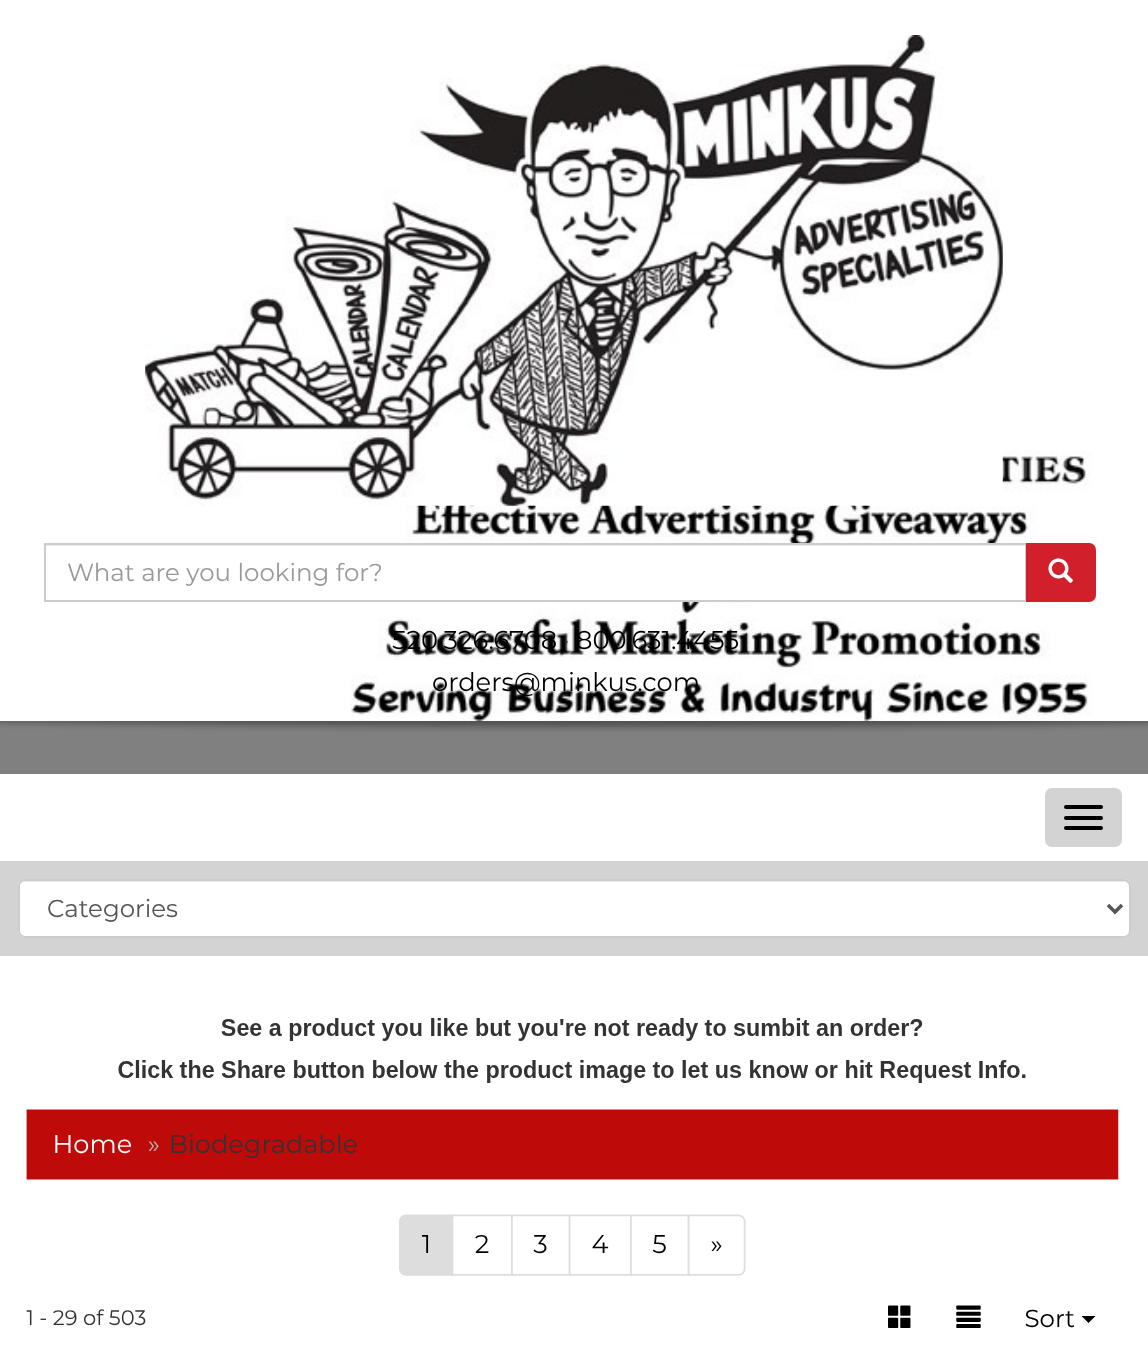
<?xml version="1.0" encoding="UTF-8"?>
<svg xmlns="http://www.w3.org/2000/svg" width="1148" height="1351">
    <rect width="100%" height="100%" fill="#808080"/>
    <rect x="0" y="0" width="1148" height="721" fill="#FFFFFF"/>
    <image x="350" y="450" width="742" height="271" href="img_01.png"/>
    <image x="145" y="35" width="858" height="471" href="img_02.png"/>
    <rect x="376" y="546" width="649" height="54" fill="#FFFFFF"/>
    <rect x="46" y="545" width="980" height="1" fill="#ECECEC"/>
    <rect x="45" y="544" width="981" height="57" fill="none" stroke="#CCCCCC" stroke-width="2"/>
    <text x="67" y="581" font-family="Montserrat" font-size="24.5" font-weight="100" fill="#999999">What are you looking for?</text>
    <path d="M 1027 544 H 1089 C 1092.5 544 1095 546.5 1095 550 V 595 C 1095 598.5 1092.5 601 1089 601 H 1027 Z" fill="#D11F2B" stroke="#D11F2B" stroke-width="2"/>
    <image x="1048" y="558" width="25" height="25" href="img_03.png"/>
    <text x="392" y="649" font-family="Montserrat" font-size="25.75" font-weight="100" fill="#000000">520.326.6708</text>
    <text x="563" y="649" font-family="Montserrat" font-size="25.75" font-weight="100" fill="#333333">·</text>
    <text x="576" y="649" font-family="Montserrat" font-size="25.75" font-weight="100" fill="#000000">800.631.4455</text>
    <text x="432" y="691" font-family="Montserrat" font-size="25.75" font-weight="100" fill="#000000">orders@minkus.com</text>
    <image x="0" y="721" width="1148" height="11" href="img_04.png"/>
    <rect x="0" y="774" width="1148" height="87" fill="#FFFFFF"/>
    <rect x="1046" y="789" width="75" height="57" rx="6" fill="#D3D3D3" stroke="#D3D3D3" stroke-width="2"/>
    <rect x="1064" y="805" width="39" height="4" rx="2" fill="#000000"/>
    <rect x="1064" y="816" width="39" height="4" rx="2" fill="#000000"/>
    <rect x="1064" y="826" width="39" height="4" rx="2" fill="#000000"/>
    <rect x="0" y="956" width="1148" height="395" fill="#FFFFFF"/>
    <rect x="0" y="861" width="1148" height="95" fill="#D3D3D3"/>
    <rect x="18" y="879" width="1113" height="59" rx="7" fill="#FFFFFF"/>
    <path d="M 24 882 H 1124 C 1126 882 1129 884 1129 887 V 885 C 1129 882 1127 880 1124 880 H 24 C 21 880 19 882 19 885 V 887 C 19 884 22 882 24 882 Z" fill="#ECECEC"/>
    <rect x="19" y="880" width="1111" height="57" rx="6" fill="none" stroke="#CCCCCC" stroke-width="2"/>
    <path d="M 1108 905 L 1115 912 L 1122 905" fill="none" stroke="#555555" stroke-width="3.5"/>
    <text x="47" y="917" font-family="Montserrat" font-size="24.5" font-weight="100" fill="#555555">Categories</text>
    <image x="26" y="1018" width="1093" height="310" href="img_05.png"/>
</svg>
